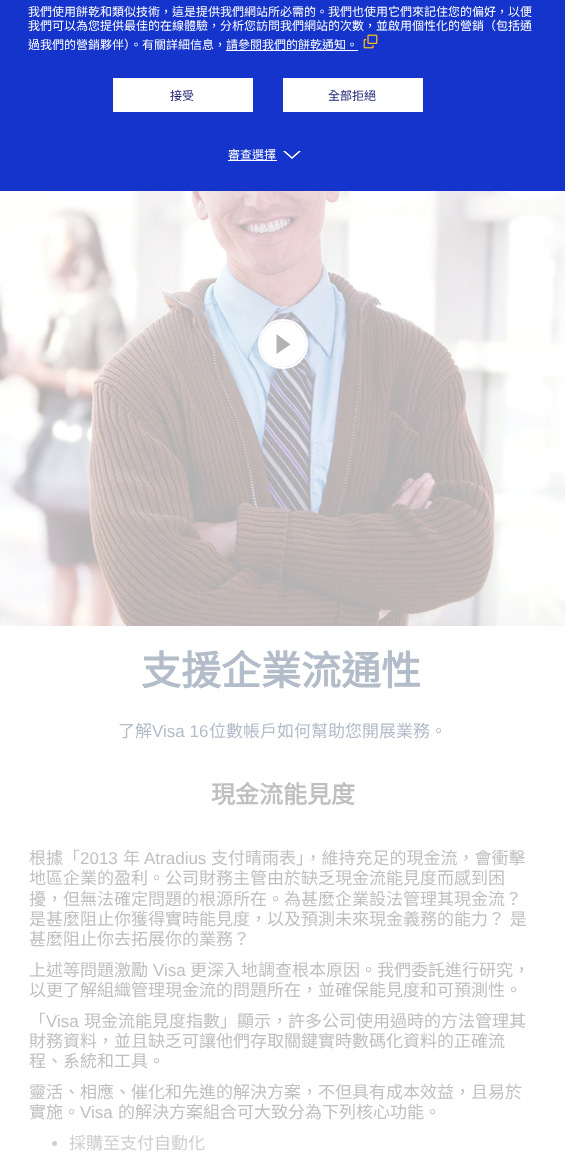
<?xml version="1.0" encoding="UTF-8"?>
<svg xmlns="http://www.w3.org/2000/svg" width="565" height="1155">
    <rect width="100%" height="100%" fill="#FFFFFF"/>
    <rect x="0" y="0" width="565" height="191" fill="#1434CB"/>
    <text font-family="Noto Sans CJK HK" font-size="12" fill="#FFFFFF">
        <tspan x="28" y="16">我們使用餅乾和類似技術，這是提供我們網站所必需的。我們也使用它們來記住您的偏好，以便</tspan>
        <tspan x="28" y="30">我們可以為您提供最佳的在線體驗，分析您訪問我們網站的次數，並啟用個性化的營銷（包括通</tspan>
    </text>
    <image x="363" y="34" width="15" height="15" href="img_01.png"/>
    <rect x="226" y="50" width="132" height="1" fill="#FFFFFF"/>
    <text x="28" y="49" font-family="Noto Sans CJK HK" font-size="12" fill="#FFFFFF">過我們的營銷夥伴）。有關詳細信息，請參閱我們的餅乾通知。</text>
    <rect x="113" y="78" width="140" height="34" fill="#FFFFFF"/>
    <text x="170" y="100" font-family="Noto Sans CJK TC" font-size="12" fill="#1A1F72">接受</text>
    <rect x="283" y="78" width="140" height="34" fill="#FFFFFF"/>
    <text x="328" y="100" font-family="Noto Sans CJK HK" font-size="12" fill="#1A1F72">全部拒絕</text>
    <text x="228" y="159" font-family="Noto Sans CJK TC" font-size="12" fill="#FFFFFF">審查選擇</text>
    <rect x="228" y="160" width="49" height="1" fill="#FFFFFF"/>
    <image x="283" y="151" width="18" height="8" href="img_02.png"/>
    <image x="0" y="191" width="565" height="435" href="img_03.png"/>
    <circle cx="283" cy="344" r="24" fill="none" stroke="#FFFFFF" stroke-width="2"/>
    <circle cx="283" cy="344" r="22.5" fill="#FFFFFF" stroke="#FFFFFF"/>
    <path d="M 276.5 334 L 290.5 344.5 L 276.5 354 Z" fill="#B3B3B3"/>
    <text x="141" y="685" font-family="Noto Sans CJK HK" font-size="40" font-weight="700" fill="#B3BCC9">支援企業流通性</text>
    <text x="118" y="737" font-family="Noto Sans CJK HK" font-size="17" fill="#B3BCC9">了解</text>
    <text x="152" y="737" font-family="Liberation Sans" font-size="17" fill="#B3BCC9">Visa 16</text>
    <text x="209" y="737" font-family="Noto Sans CJK HK" font-size="17" fill="#B3BCC9">位數帳戶如何幫助您開展業務。</text>
    <text x="211" y="803" font-family="Noto Sans CJK HK" font-size="24" font-weight="700" fill="#C0C0C0">現金流能見度</text>
    <text x="29" y="864" font-family="Noto Sans CJK HK" font-size="17" fill="#C0C0C0">根據「</text>
    <text x="80" y="864" font-family="Liberation Sans" font-size="17" fill="#C0C0C0">2013</text>
    <text x="123" y="864" font-family="Noto Sans CJK HK" font-size="17" fill="#C0C0C0">年</text>
    <text x="144" y="864" font-family="Liberation Sans" font-size="17" fill="#C0C0C0">Atradius</text>
    <text x="211" y="864" font-family="Noto Sans CJK HK" font-size="17" fill="#C0C0C0">支付晴雨表」，維持充足的現金流，會衝擊</text>
    <text font-family="Noto Sans CJK HK" font-size="17" fill="#C0C0C0">
        <tspan x="29" y="884">地區企業的盈利。公司財務主管由於缺乏現金流能見度而感到困</tspan>
        <tspan x="29" y="905">擾，但無法確定問題的根源所在。為甚麼企業設法管理其現金流？</tspan>
        <tspan x="29" y="925" word-spacing="1">是甚麼阻止你獲得實時能見度，以及預測未來現金義務的能力？ 是</tspan>
        <tspan x="29" y="945">甚麼阻止你去拓展你的業務？</tspan>
        <tspan x="29" y="976">上述等問題激勵</tspan>
    </text>
    <text x="153" y="976" font-family="Liberation Sans" font-size="17" fill="#C0C0C0">Visa</text>
    <text x="190" y="976" font-family="Noto Sans CJK HK" font-size="17" fill="#C0C0C0">更深入地調查根本原因。我們委託進行研究，</text>
    <text font-family="Noto Sans CJK HK" font-size="17" fill="#C0C0C0">
        <tspan x="29" y="996">以更了解組織管理現金流的問題所在，並確保能見度和可預測性。</tspan>
        <tspan x="29" y="1027">「</tspan>
    </text>
    <text x="46" y="1027" font-family="Liberation Sans" font-size="17" fill="#C0C0C0">Visa</text>
    <text x="84" y="1027" font-family="Noto Sans CJK HK" font-size="17" fill="#C0C0C0">現金流能見度指數」顯示，許多公司使用過時的方法管理其</text>
    <text font-family="Noto Sans CJK HK" font-size="17" fill="#C0C0C0">
        <tspan x="29" y="1047">財務資料，並且缺乏可讓他們存取關鍵實時數碼化資料的正確流</tspan>
        <tspan x="29" y="1067">程、系統和工具。</tspan>
        <tspan x="29" y="1098">靈活、相應、催化和先進的解決方案，不但具有成本效益，且易於</tspan>
        <tspan x="29" y="1118">實施。</tspan>
    </text>
    <text x="80" y="1118" font-family="Liberation Sans" font-size="17" fill="#C0C0C0">Visa</text>
    <text x="118" y="1118" font-family="Noto Sans CJK HK" font-size="17" fill="#C0C0C0">的解決方案組合可大致分為下列核心功能。</text>
    <circle cx="54.5" cy="1143.5" r="2.5" fill="#CECECE"/>
    <text x="69" y="1149" font-family="Noto Sans CJK HK" font-size="17" fill="#CECECE">採購至支付自動化</text>
</svg>
